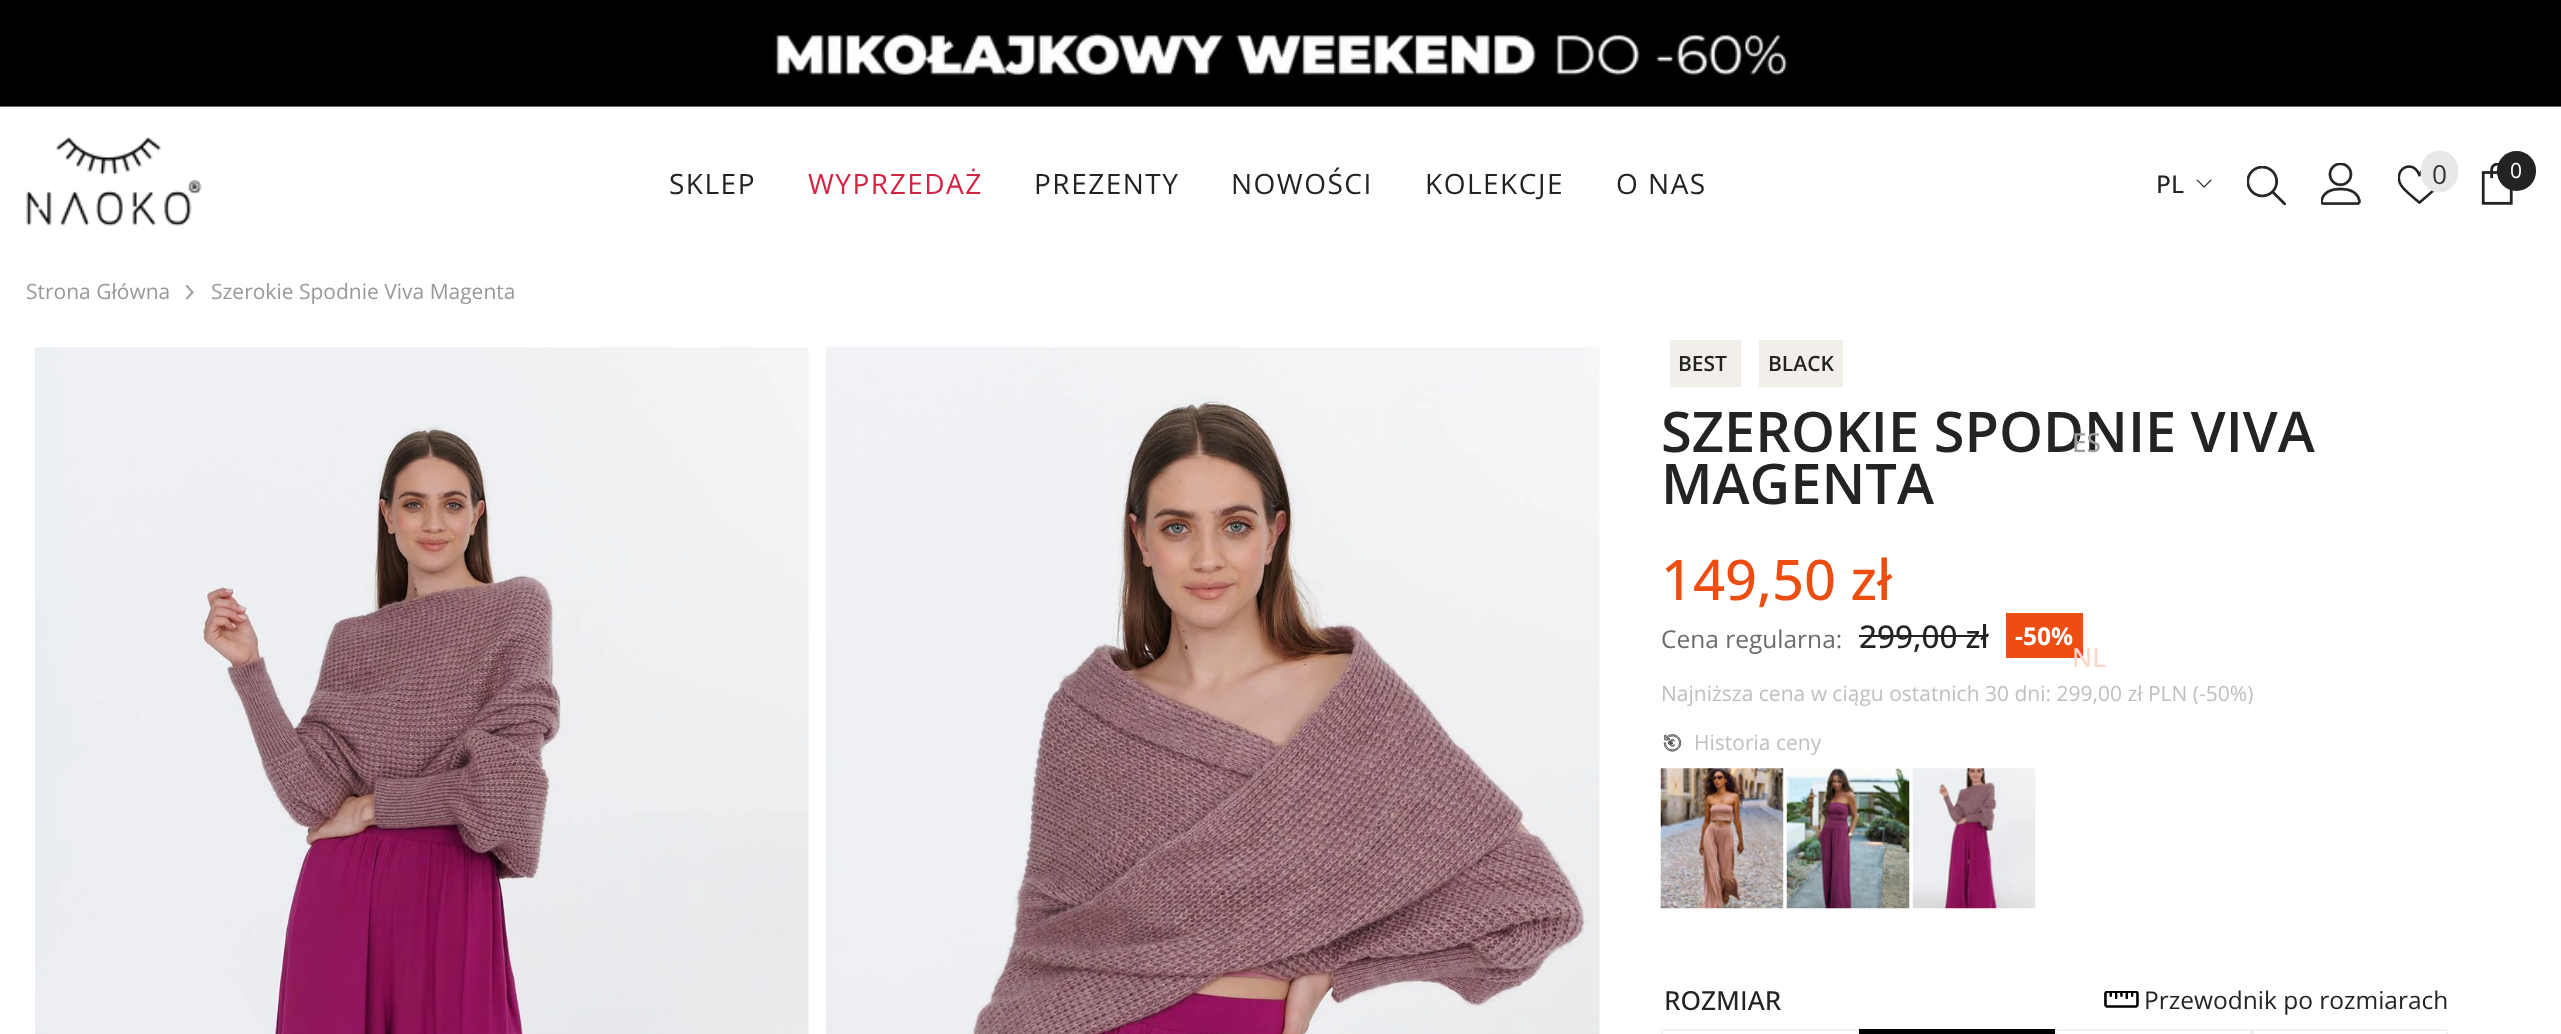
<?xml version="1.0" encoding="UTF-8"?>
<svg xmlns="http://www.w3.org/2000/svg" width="2561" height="1034">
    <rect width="100%" height="100%" fill="#FFFFFF"/>
    <image x="0" y="0" width="2561" height="107" href="img_01.png"/>
    <image x="26" y="136" width="176" height="90" href="img_02.png"/>
    <text x="669" y="194" font-family="Open Sans" font-size="28" letter-spacing="1.5" fill="#232323">SKLEP</text>
    <text x="808" y="194" font-family="Open Sans" font-size="28" letter-spacing="1.5" fill="#D12442">WYPRZEDAŻ</text>
    <text x="1034" y="194" font-family="Open Sans" font-size="28" letter-spacing="1.5" fill="#232323">PREZENTY</text>
    <text x="1231" y="194" font-family="Open Sans" font-size="28" letter-spacing="1.5" fill="#232323">NOWOŚCI</text>
    <text x="1425" y="194" font-family="Open Sans" font-size="28" letter-spacing="1.5" fill="#232323">KOLEKCJE</text>
    <text x="1616" y="194" font-family="Open Sans" font-size="28" letter-spacing="1.5" fill="#232323">O NAS</text>
    <text x="2156" y="193" font-family="Open Sans" font-size="24.5" font-weight="500" fill="#232323">PL</text>
    <image x="2196" y="179" width="16" height="9" href="img_03.png"/>
    <text x="1661" y="452" font-family="Open Sans" font-size="56" font-weight="600" fill="#232323">SZEROKIE SPODNIE VIVA</text>
    <text x="2072" y="452" font-family="Open Sans" font-size="26.25" font-weight="500" fill="#9F9F9F">ES</text>
    <rect x="2006" y="613" width="77" height="45" fill="#ED4D10"/>
    <text x="2072" y="667" font-family="Open Sans" font-size="26.25" font-weight="500" fill="#FBD7C9">NL</text>
    <image x="2247" y="166" width="39" height="39" href="img_04.png"/>
    <image x="2321" y="163" width="40" height="42" href="img_05.png"/>
    <image x="2398" y="165" width="37" height="39" href="img_06.png"/>
    <ellipse cx="2439.5" cy="171.5" rx="19" ry="21" fill="#E8E8E8"/>
    <text x="2432" y="184" font-family="Open Sans" font-size="26.25" fill="#323232">0</text>
    <image x="2481" y="163" width="32" height="42" href="img_07.png"/>
    <rect x="2497" y="151" width="39" height="40" rx="19.5" fill="#232323"/>
    <text x="2510" y="178" font-family="Open Sans" font-size="21" fill="#FFFFFF">0</text>
    <text x="26" y="299" font-family="Open Sans" font-size="21" fill="#999999">Strona Główna</text>
    <image x="185" y="284" width="9" height="16" href="img_08.png"/>
    <text x="211" y="299" font-family="Open Sans" font-size="21" fill="#999999">Szerokie Spodnie Viva Magenta</text>
    <image x="35" y="347" width="774" height="687" href="img_09.png"/>
    <image x="826" y="347" width="774" height="687" href="img_10.png"/>
    <rect x="1670" y="340" width="71" height="47" fill="#F2EFEB"/>
    <text x="1678" y="371" font-family="Open Sans" font-size="21" font-weight="600" fill="#232323">BEST</text>
    <rect x="1759" y="340" width="84" height="47" fill="#F2EFEB"/>
    <text x="1768" y="371" font-family="Open Sans" font-size="21" font-weight="600" fill="#232323">BLACK</text>
    <text x="1661" y="504" font-family="Open Sans" font-size="56" font-weight="600" fill="#232323">MAGENTA</text>
    <text x="1661" y="600" font-family="Open Sans" font-size="56" font-weight="500" fill="#ED4D10">149,50 zł</text>
    <text x="1661" y="648" font-family="Open Sans" font-size="24.5" fill="#6B6B6B">Cena regularna:</text>
    <text x="1859" y="648" font-family="Open Sans" font-size="31.5" font-weight="500" fill="#232323">299,00 zł</text>
    <rect x="1859" y="635" width="129" height="2" fill="#232323"/>
    <text x="2015" y="645" font-family="Open Sans" font-size="24.5" font-weight="700" fill="#FFFFFF">-50%</text>
    <text x="1661" y="701" font-family="Open Sans" font-size="21" fill="#BFBFBF">Najniższa cena w ciągu ostatnich 30 dni: 299,00 zł PLN (-50%)</text>
    <image x="1663" y="734" width="19" height="18" href="img_11.png"/>
    <text x="1694" y="750" font-family="Open Sans" font-size="21" fill="#BFBFBF">Historia ceny</text>
    <image x="1660" y="768" width="124" height="141" href="img_12.png"/>
    <image x="1786" y="768" width="124" height="141" href="img_13.png"/>
    <image x="1912" y="768" width="124" height="141" href="img_14.png"/>
    <text x="1664" y="1010" font-family="Open Sans" font-size="26.25" font-weight="500" fill="#232323">ROZMIAR</text>
    <rect x="1662" y="1030" width="196" height="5" fill="none" stroke="#F0F1F2" stroke-width="2"/>
    <rect x="1859" y="1029" width="196" height="5" fill="#000000"/>
    <rect x="2056" y="1030" width="195" height="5" fill="none" stroke="#F0F1F2" stroke-width="2"/>
    <rect x="2253" y="1030" width="194" height="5" fill="none" stroke="#F0F1F2" stroke-width="2"/>
    <image x="2104" y="991" width="35" height="17" href="img_15.png"/>
    <text x="2144" y="1009" font-family="Open Sans" font-size="24.5" fill="#232323">Przewodnik po rozmiarach</text>
</svg>
